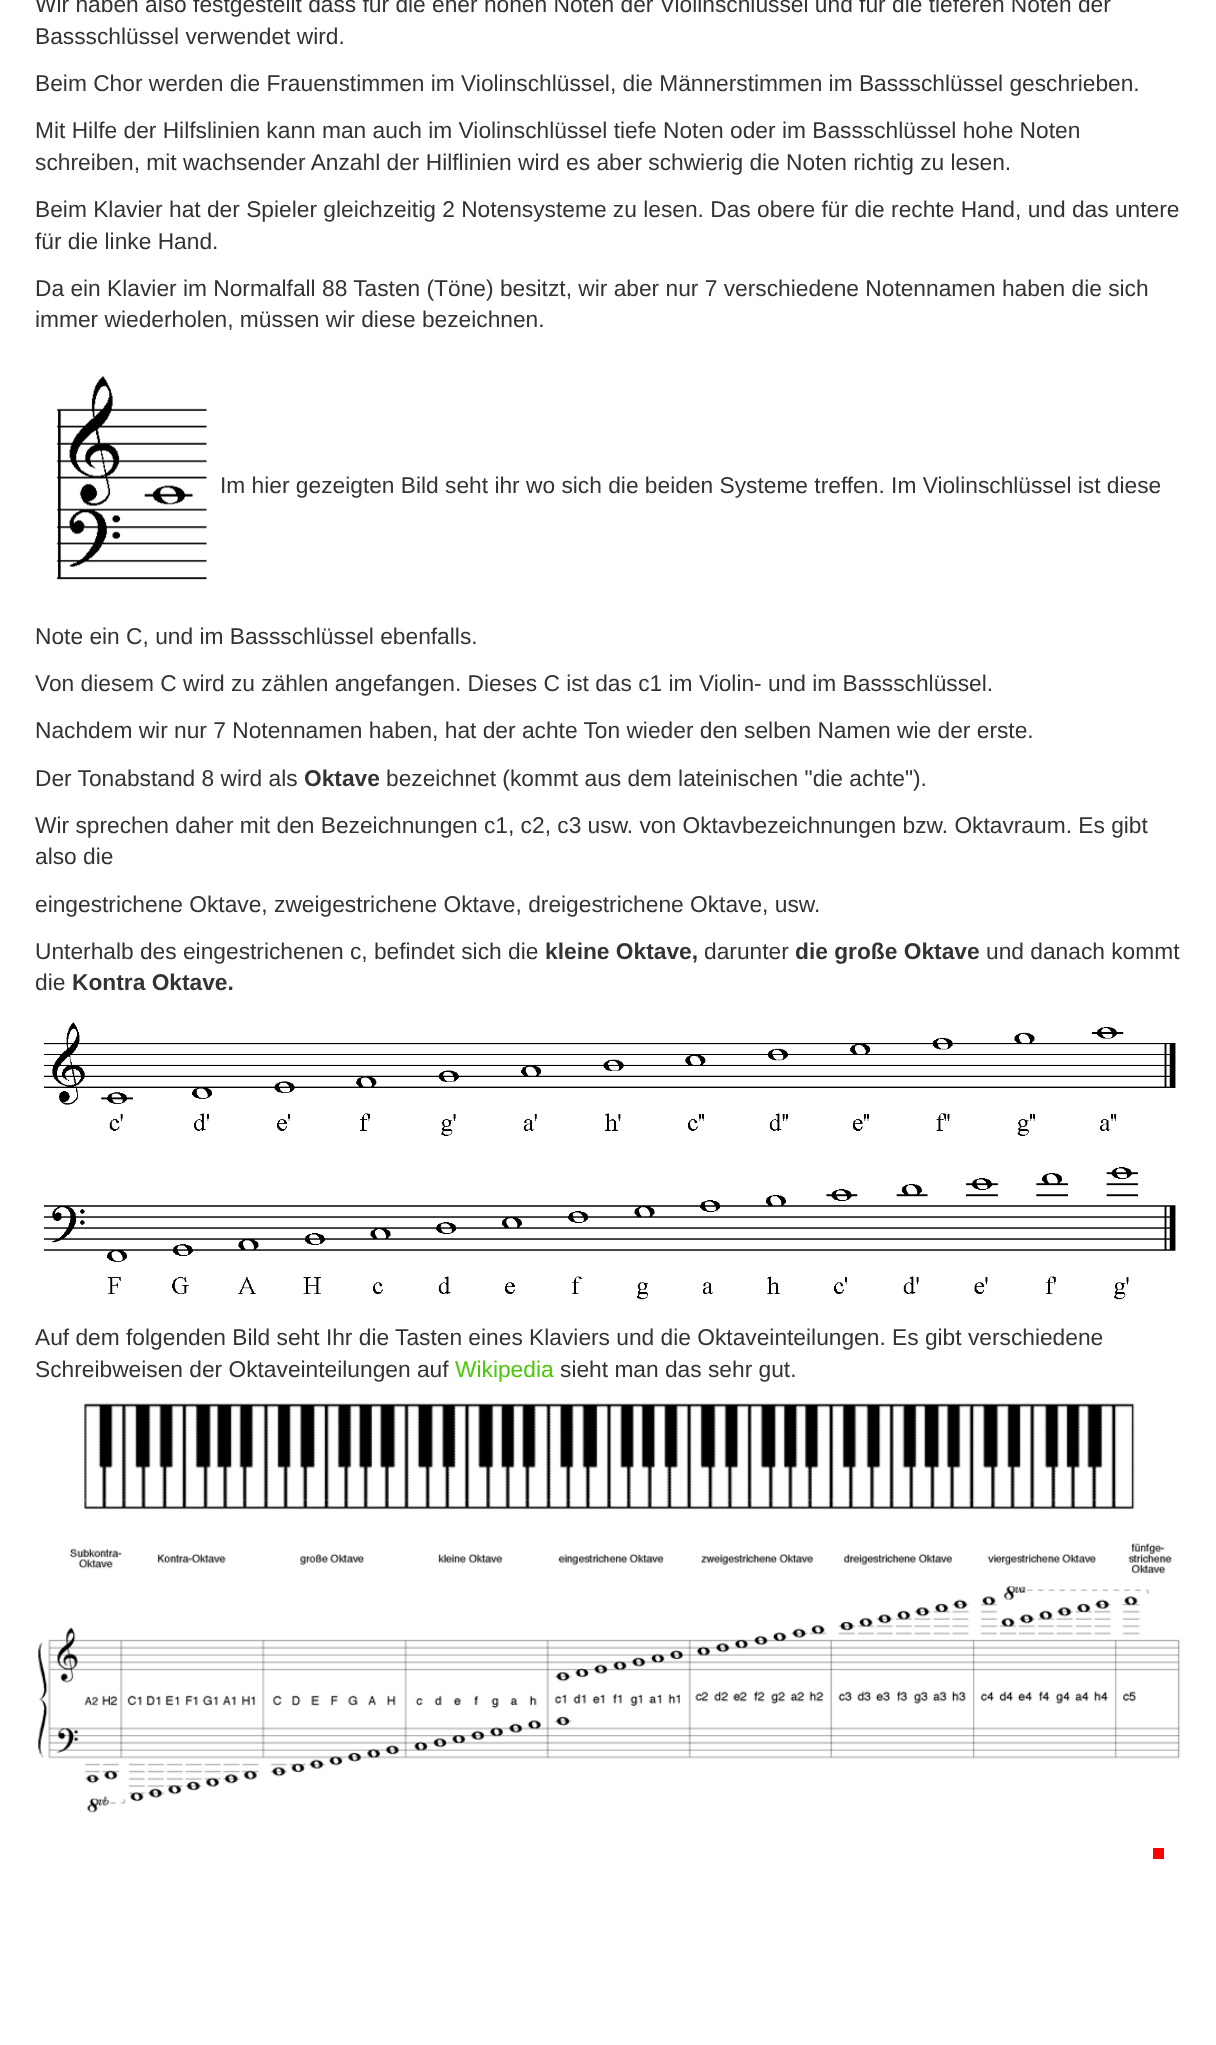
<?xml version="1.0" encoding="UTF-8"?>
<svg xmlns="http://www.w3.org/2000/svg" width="1216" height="2045">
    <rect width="100%" height="100%" fill="#FFFFFF"/>
    <text font-family="Liberation Sans" font-size="22.75" fill="#333333">
        <tspan x="35" y="12">Wir haben also festgestellt dass für die eher hohen Noten der Violinschlüssel und für die tieferen Noten der</tspan>
        <tspan x="35" y="44">Bassschlüssel verwendet wird.</tspan>
    </text>
    <text x="35" y="91" font-family="Liberation Sans" font-size="22.75" fill="#333333">Beim Chor werden die Frauenstimmen im Violinschlüssel, die Männerstimmen im Bassschlüssel geschrieben.</text>
    <text font-family="Liberation Sans" font-size="22.75" fill="#333333">
        <tspan x="35" y="138">Mit Hilfe der Hilfslinien kann man auch im Violinschlüssel tiefe Noten oder im Bassschlüssel hohe Noten</tspan>
        <tspan x="35" y="170">schreiben, mit wachsender Anzahl der Hilflinien wird es aber schwierig die Noten richtig zu lesen.</tspan>
    </text>
    <text font-family="Liberation Sans" font-size="22.75" fill="#333333">
        <tspan x="35" y="217">Beim Klavier hat der Spieler gleichzeitig 2 Notensysteme zu lesen. Das obere für die rechte Hand, und das untere</tspan>
        <tspan x="35" y="249">für die linke Hand.</tspan>
    </text>
    <text font-family="Liberation Sans" font-size="22.75" fill="#333333">
        <tspan x="35" y="296">Da ein Klavier im Normalfall 88 Tasten (Töne) besitzt, wir aber nur 7 verschiedene Notennamen haben die sich</tspan>
        <tspan x="35" y="327">immer wiederholen, müssen wir diese bezeichnen.</tspan>
    </text>
    <image x="56" y="375" width="151" height="205" href="img_01.png"/>
    <text x="220" y="493" font-family="Liberation Sans" font-size="22.75" fill="#333333">Im hier gezeigten Bild seht ihr wo sich die beiden Systeme treffen. Im Violinschlüssel ist diese</text>
    <text x="35" y="644" font-family="Liberation Sans" font-size="22.75" fill="#333333">Note ein C, und im Bassschlüssel ebenfalls.</text>
    <text x="35" y="691" font-family="Liberation Sans" font-size="22.75" fill="#333333">Von diesem C wird zu zählen angefangen. Dieses C ist das c1 im Violin- und im Bassschlüssel.</text>
    <text x="35" y="738" font-family="Liberation Sans" font-size="22.75" fill="#333333">Nachdem wir nur 7 Notennamen haben, hat der achte Ton wieder den selben Namen wie der erste.</text>
    <text x="35" y="786" font-family="Liberation Sans" font-size="22.75" fill="#333333">Der Tonabstand 8 wird als</text>
    <text x="304" y="786" font-family="Liberation Sans" font-size="22.75" font-weight="700" fill="#333333">Oktave</text>
    <text x="386" y="786" font-family="Liberation Sans" font-size="22.75" fill="#333333">bezeichnet (kommt aus dem lateinischen "die achte").</text>
    <text font-family="Liberation Sans" font-size="22.75" fill="#333333">
        <tspan x="35" y="833">Wir sprechen daher mit den Bezeichnungen c1, c2, c3 usw. von Oktavbezeichnungen bzw. Oktavraum. Es gibt</tspan>
        <tspan x="35" y="864">also die</tspan>
    </text>
    <text x="35" y="912" font-family="Liberation Sans" font-size="22.75" fill="#333333">eingestrichene Oktave, zweigestrichene Oktave, dreigestrichene Oktave, usw.</text>
    <text x="35" y="959" font-family="Liberation Sans" font-size="22.75" fill="#333333">Unterhalb des eingestrichenen c, befindet sich die</text>
    <text x="545" y="959" font-family="Liberation Sans" font-size="22.75" font-weight="700" fill="#333333">kleine Oktave,</text>
    <text x="704" y="959" font-family="Liberation Sans" font-size="22.75" fill="#333333">darunter</text>
    <text x="795" y="959" font-family="Liberation Sans" font-size="22.75" font-weight="700" fill="#333333">die große Oktave</text>
    <text x="986" y="959" font-family="Liberation Sans" font-size="22.75" fill="#333333">und danach kommt</text>
    <text x="35" y="990" font-family="Liberation Sans" font-size="22.75" fill="#333333">die</text>
    <text x="72" y="990" font-family="Liberation Sans" font-size="22.75" font-weight="700" fill="#333333">Kontra Oktave.</text>
    <image x="44" y="1022" width="1132" height="114" href="img_02.png"/>
    <image x="44" y="1167" width="1132" height="133" href="img_03.png"/>
    <text font-family="Liberation Sans" font-size="22.75" fill="#333333">
        <tspan x="35" y="1345">Auf dem folgenden Bild seht Ihr die Tasten eines Klaviers und die Oktaveinteilungen. Es gibt verschiedene</tspan>
        <tspan x="35" y="1377">Schreibweisen der Oktaveinteilungen auf</tspan>
    </text>
    <text x="455" y="1377" font-family="Liberation Sans" font-size="22.75" fill="#4CC70A">Wikipedia</text>
    <text x="560" y="1377" font-family="Liberation Sans" font-size="22.75" fill="#333333">sieht man das sehr gut.</text>
    <image x="37" y="1403" width="1144" height="410" href="img_04.png"/>
    <rect x="1153" y="1848" width="11" height="11" fill="#FF0000"/>
</svg>
